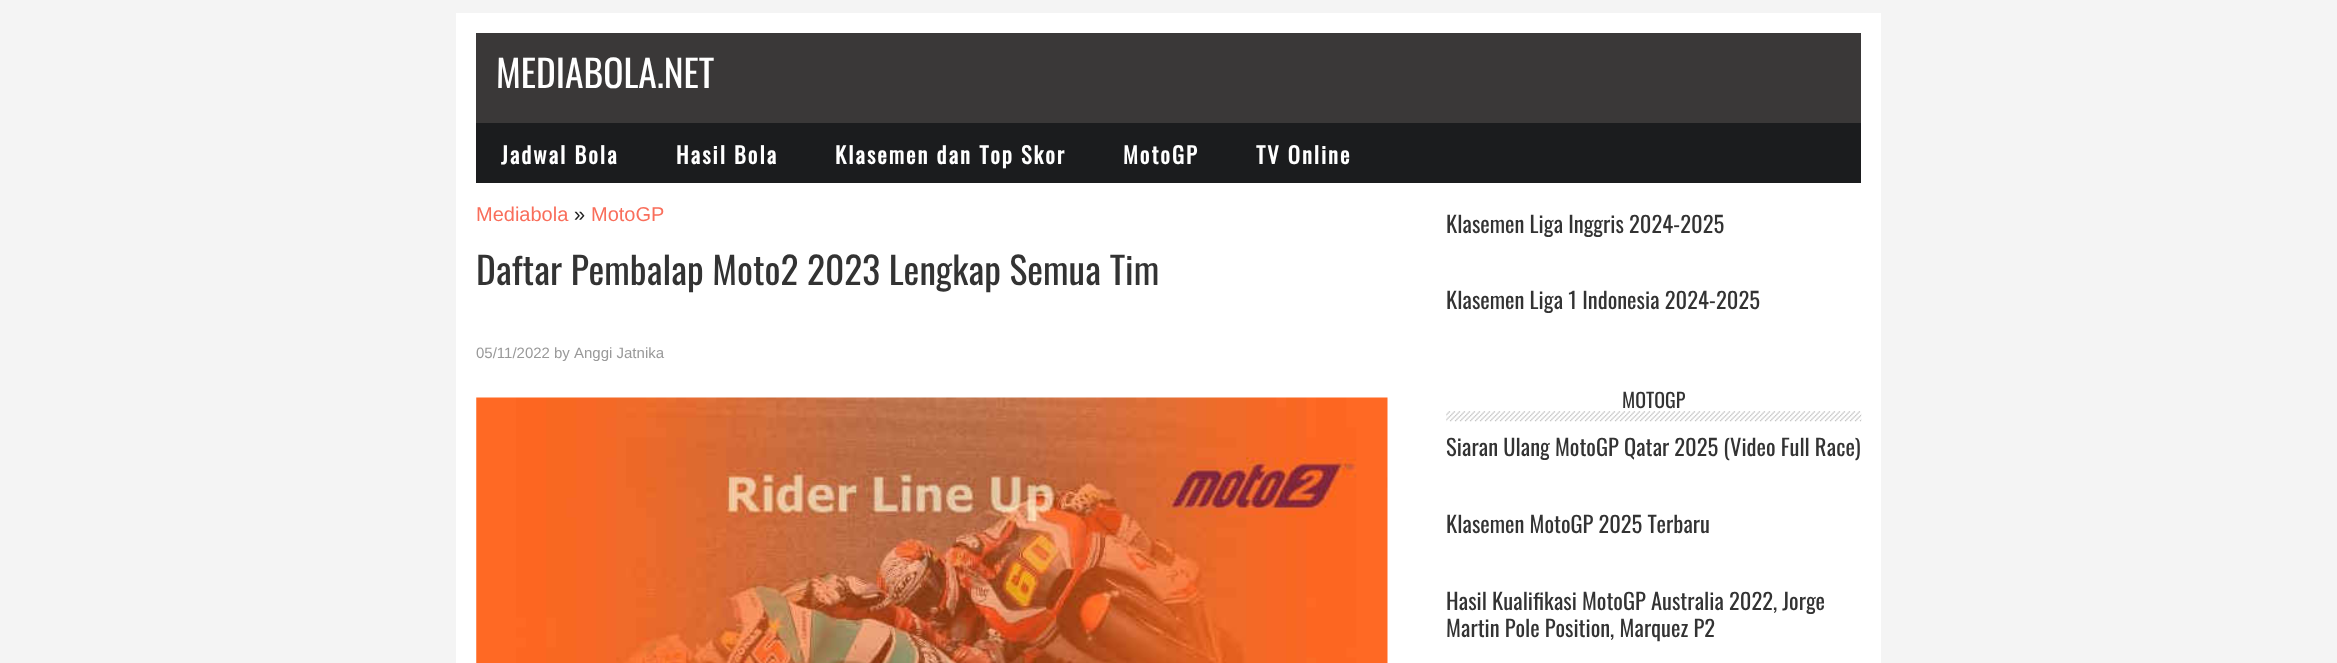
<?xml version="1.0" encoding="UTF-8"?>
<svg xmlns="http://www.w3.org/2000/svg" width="2337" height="663">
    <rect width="100%" height="100%" fill="#F4F4F4"/>
    <rect x="456" y="13" width="1425" height="650" fill="#FFFFFF"/>
    <rect x="476" y="33" width="1385" height="90" fill="#3A3838"/>
    <text x="496" y="88" font-family="Oswald" font-size="37.5" fill="#FFFFFF">MEDIABOLA.NET</text>
    <rect x="476" y="123" width="1385" height="60" fill="#1B1C1E"/>
    <text x="501" y="164" font-family="Oswald" font-size="22.5" font-weight="700" letter-spacing="2" fill="#FFFFFF">Jadwal Bola</text>
    <text x="676" y="164" font-family="Oswald" font-size="22.5" font-weight="700" letter-spacing="2" fill="#FFFFFF">Hasil Bola</text>
    <text x="835" y="164" font-family="Oswald" font-size="22.5" font-weight="700" letter-spacing="2" fill="#FFFFFF">Klasemen dan Top Skor</text>
    <text x="1123" y="164" font-family="Oswald" font-size="22.5" font-weight="700" letter-spacing="2" fill="#FFFFFF">MotoGP</text>
    <text x="1256" y="164" font-family="Oswald" font-size="22.5" font-weight="700" letter-spacing="2" fill="#FFFFFF">TV Online</text>
    <text x="476" y="221" font-family="Liberation Sans" font-size="20" fill="#F96E5B">Mediabola</text>
    <text x="574" y="221" font-family="Liberation Sans" font-size="20" fill="#222222">»</text>
    <text x="591" y="221" font-family="Liberation Sans" font-size="20" fill="#F96E5B">MotoGP</text>
    <text x="476" y="285" font-family="Oswald" font-size="37.5" fill="#333333">Daftar Pembalap Moto2 2023 Lengkap Semua Tim</text>
    <text x="476" y="358" font-family="Liberation Sans" font-size="15" fill="#999999">05/11/2022</text>
    <text x="554" y="358" font-family="Liberation Sans" font-size="15" fill="#999999">by</text>
    <text x="574" y="358" font-family="Liberation Sans" font-size="15" fill="#999999">Anggi Jatnika</text>
    <image x="476" y="397" width="912" height="266" href="img_01.png"/>
    <text x="1446" y="233" font-family="Oswald" font-size="22.5" fill="#333333">Klasemen Liga Inggris 2024-2025</text>
    <text x="1446" y="309" font-family="Oswald" font-size="22.5" fill="#333333">Klasemen Liga 1 Indonesia 2024-2025</text>
    <image x="1446" y="411" width="416" height="11" href="img_02.png"/>
    <text x="1622" y="408" font-family="Oswald" font-size="20" fill="#333333">MOTOGP</text>
    <text x="1446" y="456" font-family="Oswald" font-size="22.5" fill="#333333">Siaran Ulang MotoGP Qatar 2025 (Video Full Race)</text>
    <text x="1446" y="533" font-family="Oswald" font-size="22.5" fill="#333333">Klasemen MotoGP 2025 Terbaru</text>
    <text font-family="Oswald" font-size="22.5" fill="#333333">
        <tspan x="1446" y="610">Hasil Kualifikasi MotoGP Australia 2022, Jorge</tspan>
        <tspan x="1446" y="637">Martin Pole Position, Marquez P2</tspan>
    </text>
</svg>
